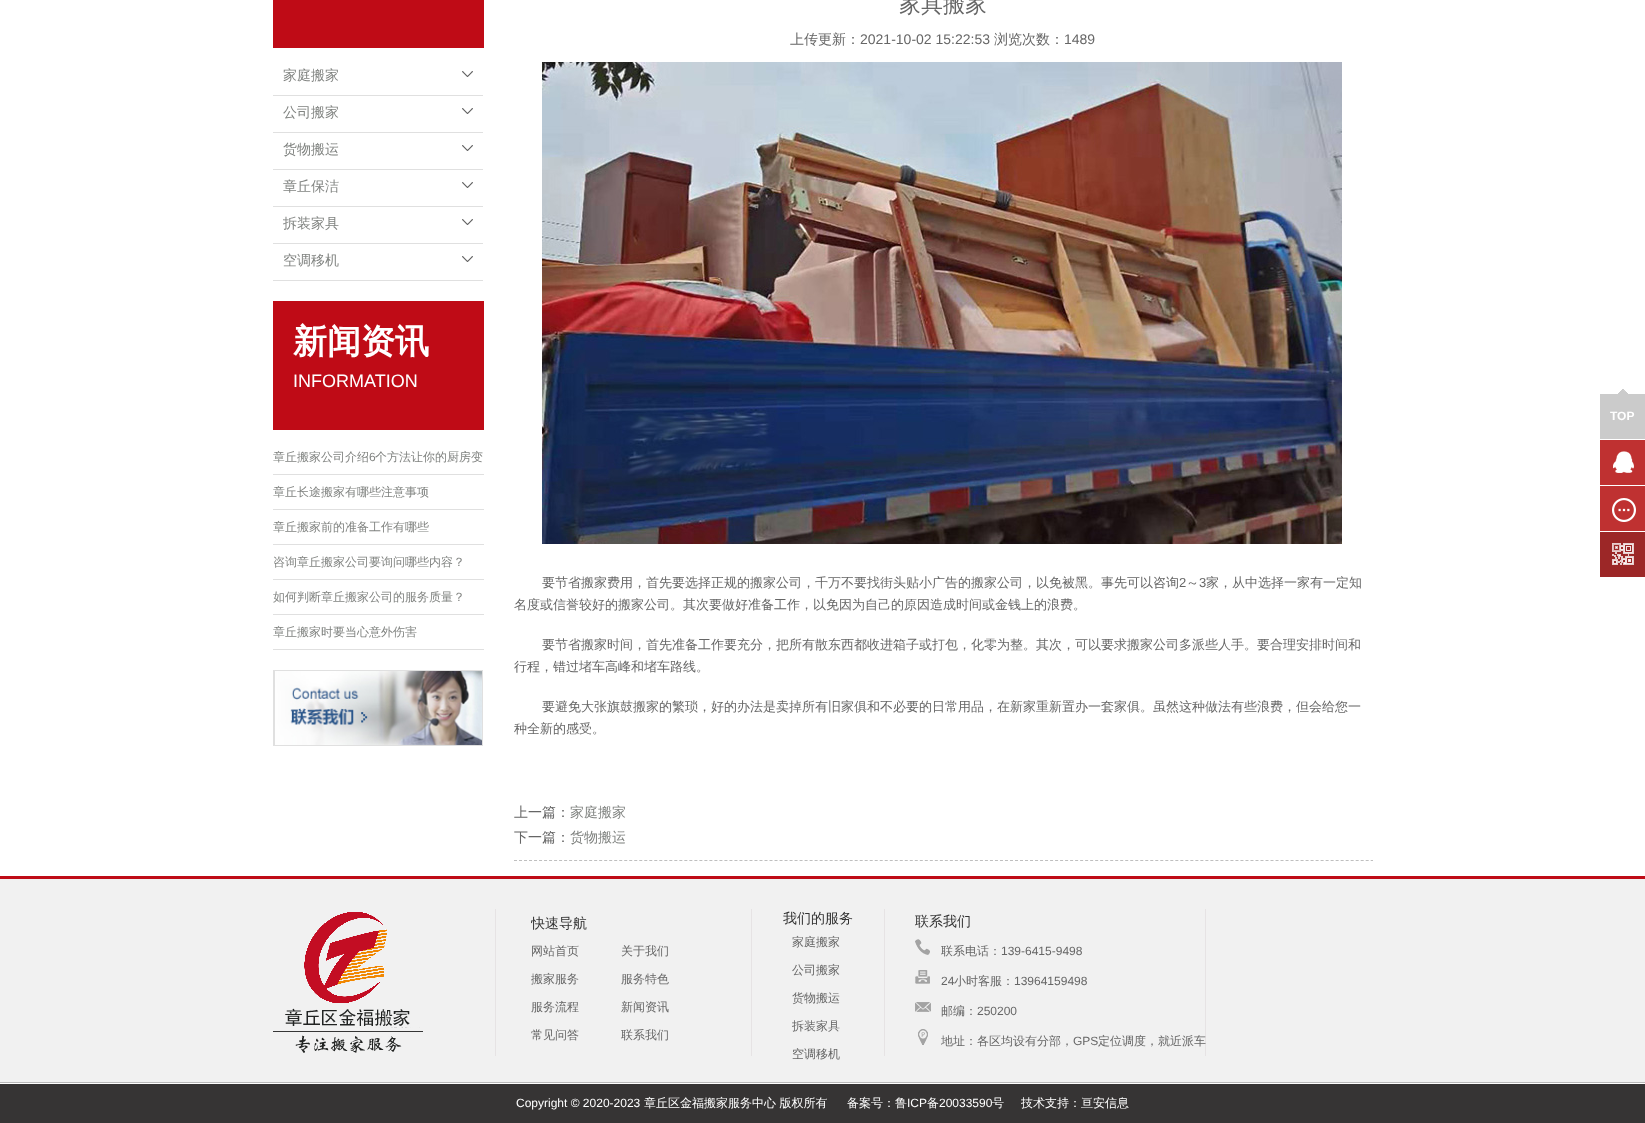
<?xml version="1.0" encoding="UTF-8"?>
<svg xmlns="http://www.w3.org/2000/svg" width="1645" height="1123">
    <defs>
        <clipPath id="clip1"><rect x="531" y="909" width="220" height="28"/></clipPath>
        <clipPath id="clip2"><rect x="531" y="965" width="90" height="28"/></clipPath>
        <clipPath id="clip3"><rect x="621" y="1021" width="90" height="28"/></clipPath>
        <clipPath id="clip4"><rect x="792" y="1012" width="80" height="28"/></clipPath>
        <clipPath id="clip5"><rect x="915" y="909" width="300" height="30"/></clipPath>
    </defs>
    <rect width="100%" height="100%" fill="#FFFFFF"/>
    <rect x="273" y="0" width="211" height="48" fill="#BF0B16"/>
    <rect x="273" y="95" width="210" height="1" fill="#E0E0E0"/>
    <text x="283" y="80" font-family="WenQuanYi Zen Hei" font-size="14" font-weight="500" fill="#808380">家庭搬家</text>
    <image x="462" y="71" width="11" height="6" href="img_01.png"/>
    <rect x="273" y="132" width="210" height="1" fill="#E0E0E0"/>
    <text x="283" y="117" font-family="WenQuanYi Zen Hei" font-size="14" font-weight="500" fill="#808380">公司搬家</text>
    <image x="462" y="108" width="11" height="6" href="img_01.png"/>
    <rect x="273" y="169" width="210" height="1" fill="#E0E0E0"/>
    <text x="283" y="154" font-family="WenQuanYi Zen Hei" font-size="14" font-weight="500" fill="#808380">货物搬运</text>
    <image x="462" y="145" width="11" height="6" href="img_01.png"/>
    <rect x="273" y="206" width="210" height="1" fill="#E0E0E0"/>
    <text x="283" y="191" font-family="WenQuanYi Zen Hei" font-size="14" font-weight="500" fill="#808380">章丘保洁</text>
    <image x="462" y="182" width="11" height="6" href="img_01.png"/>
    <rect x="273" y="243" width="210" height="1" fill="#E0E0E0"/>
    <text x="283" y="228" font-family="WenQuanYi Zen Hei" font-size="14" font-weight="500" fill="#808380">拆装家具</text>
    <image x="462" y="219" width="11" height="6" href="img_01.png"/>
    <rect x="273" y="280" width="210" height="1" fill="#E0E0E0"/>
    <text x="283" y="265" font-family="WenQuanYi Zen Hei" font-size="14" font-weight="500" fill="#808380">空调移机</text>
    <image x="462" y="256" width="11" height="6" href="img_01.png"/>
    <rect x="273" y="301" width="211" height="129" fill="#BF0B16"/>
    <text x="293" y="353" font-family="WenQuanYi Zen Hei" font-size="34" font-weight="700" fill="#FFFFFF">新闻资讯</text>
    <text x="293" y="387" font-family="Liberation Sans" font-size="18" fill="#FFFFFF">INFORMATION</text>
    <rect x="273" y="474" width="211" height="1" fill="#E0E0E0"/>
    <text x="273" y="461" font-family="WenQuanYi Zen Hei" font-size="12" font-weight="500" fill="#808380">章丘搬家公司介绍</text>
    <text x="369" y="461" font-family="Liberation Sans" font-size="12" fill="#808380">6</text>
    <text x="375" y="461" font-family="WenQuanYi Zen Hei" font-size="12" font-weight="500" fill="#808380">个方法让你的厨房变</text>
    <rect x="273" y="509" width="211" height="1" fill="#E0E0E0"/>
    <text x="273" y="496" font-family="WenQuanYi Zen Hei" font-size="12" font-weight="500" fill="#808380">章丘长途搬家有哪些注意事项</text>
    <rect x="273" y="544" width="211" height="1" fill="#E0E0E0"/>
    <text x="273" y="531" font-family="WenQuanYi Zen Hei" font-size="12" font-weight="500" fill="#808380">章丘搬家前的准备工作有哪些</text>
    <rect x="273" y="579" width="211" height="1" fill="#E0E0E0"/>
    <text x="273" y="566" font-family="WenQuanYi Zen Hei" font-size="12" font-weight="500" fill="#808380">咨询章丘搬家公司要询问哪些内容？</text>
    <rect x="273" y="614" width="211" height="1" fill="#E0E0E0"/>
    <text x="273" y="601" font-family="WenQuanYi Zen Hei" font-size="12" font-weight="500" fill="#808380">如何判断章丘搬家公司的服务质量？</text>
    <rect x="273" y="649" width="211" height="1" fill="#E0E0E0"/>
    <text x="273" y="636" font-family="WenQuanYi Zen Hei" font-size="12" font-weight="500" fill="#808380">章丘搬家时要当心意外伤害</text>
    <rect x="273.5" y="670.5" width="209" height="75" fill="none" stroke="#E0E0E0"/>
    <image x="274" y="671" width="208" height="74" href="img_02.png"/>
    <path d="M 514 860.5 H 1373" fill="none" stroke="#BFBFBF" stroke-dasharray="3 2.01"/>
    <text x="899" y="12" font-family="WenQuanYi Zen Hei" font-size="22" font-weight="500" fill="#666666">家具搬家</text>
    <text x="790" y="44" font-family="WenQuanYi Zen Hei" font-size="14" font-weight="500" fill="#666666">上传更新：</text>
    <text x="860" y="44" font-family="Liberation Sans" font-size="14" fill="#666666">2021-10-02 15:22:53</text>
    <text x="994" y="44" font-family="WenQuanYi Zen Hei" font-size="14" font-weight="500" fill="#666666">浏览次数：</text>
    <text x="1064" y="44" font-family="Liberation Sans" font-size="14" fill="#666666">1489</text>
    <image x="542" y="62" width="800" height="482" href="img_03.png"/>
    <text x="542" y="587" font-family="WenQuanYi Zen Hei" font-size="13" font-weight="500" fill="#666666">要节省搬家费用，首先要选择正规的搬家公司，千万不要找街头贴小广告的搬家公司，以免被黑。事先可以咨询</text>
    <text x="1179" y="587" font-family="Liberation Sans" font-size="13" fill="#666666">2</text>
    <text x="1186" y="587" font-family="WenQuanYi Zen Hei" font-size="13" font-weight="500" fill="#666666">～</text>
    <text x="1199" y="587" font-family="Liberation Sans" font-size="13" fill="#666666">3</text>
    <text x="1206" y="587" font-family="WenQuanYi Zen Hei" font-size="13" font-weight="500" fill="#666666">家，从中选择一家有一定知</text>
    <text x="514" y="609" font-family="WenQuanYi Zen Hei" font-size="13" font-weight="500" fill="#666666">名度或信誉较好的搬家公司。其次要做好准备工作，以免因为自己的原因造成时间或金钱上的浪费。</text>
    <text x="542" y="649" font-family="WenQuanYi Zen Hei" font-size="13" font-weight="500" fill="#666666">要节省搬家时间，首先准备工作要充分，把所有散东西都收进箱子或打包，化零为整。其次，可以要求搬家公司多派些人手。要合理安排时间和</text>
    <text x="514" y="671" font-family="WenQuanYi Zen Hei" font-size="13" font-weight="500" fill="#666666">行程，错过堵车高峰和堵车路线。</text>
    <text x="542" y="711" font-family="WenQuanYi Zen Hei" font-size="13" font-weight="500" fill="#666666">要避免大张旗鼓搬家的繁琐，好的办法是卖掉所有旧家俱和不必要的日常用品，在新家重新置办一套家俱。虽然这种做法有些浪费，但会给您一</text>
    <text x="514" y="733" font-family="WenQuanYi Zen Hei" font-size="13" font-weight="500" fill="#666666">种全新的感受。</text>
    <text x="514" y="817" font-family="WenQuanYi Zen Hei" font-size="14" font-weight="500" fill="#666666">上一篇：</text>
    <text x="570" y="817" font-family="WenQuanYi Zen Hei" font-size="14" font-weight="500" fill="#808380">家庭搬家</text>
    <text x="514" y="842" font-family="WenQuanYi Zen Hei" font-size="14" font-weight="500" fill="#666666">下一篇：</text>
    <text x="570" y="842" font-family="WenQuanYi Zen Hei" font-size="14" font-weight="500" fill="#808380">货物搬运</text>
    <rect x="1600" y="394" width="45" height="45" fill="#CBCBCB"/>
    <image x="1618" y="389" width="10" height="5" href="img_04.png"/>
    <text x="1610" y="420" font-family="Liberation Sans" font-size="12" font-weight="700" fill="#FFFFFF">TOP</text>
    <rect x="1600" y="440" width="45" height="45" fill="#BF3131"/>
    <image x="1613" y="451" width="21" height="22" href="img_05.png"/>
    <rect x="1600" y="486" width="45" height="45" fill="#BF3131"/>
    <image x="1612" y="498" width="24" height="24" href="img_06.png"/>
    <rect x="1600" y="532" width="45" height="45" fill="#9C2727"/>
    <image x="1612" y="543" width="22" height="22" href="img_07.png"/>
    <rect x="0" y="879" width="1645" height="203" fill="#F1F1F1"/>
    <rect x="0" y="876" width="1645" height="3" fill="#BF0B16"/>
    <rect x="0" y="1082" width="1645" height="1" fill="#B9B9B9"/>
    <rect x="495" y="909" width="1" height="147" fill="#E6E3E4"/>
    <image x="273" y="912" width="150" height="141" href="img_08.png"/>
    <rect x="751" y="909" width="1" height="147" fill="#E6E3E4"/>
    <g clip-path="url(#clip1)">
        <text x="531" y="928" font-family="WenQuanYi Zen Hei" font-size="14" font-weight="500" fill="#333333">快速导航</text>
    </g>
    <text x="531" y="955" font-family="WenQuanYi Zen Hei" font-size="12" font-weight="500" fill="#666666">网站首页</text>
    <text x="621" y="955" font-family="WenQuanYi Zen Hei" font-size="12" font-weight="500" fill="#666666">关于我们</text>
    <g clip-path="url(#clip2)">
        <text x="531" y="983" font-family="WenQuanYi Zen Hei" font-size="12" font-weight="500" fill="#666666">搬家服务</text>
    </g>
    <text x="621" y="983" font-family="WenQuanYi Zen Hei" font-size="12" font-weight="500" fill="#666666">服务特色</text>
    <text x="531" y="1011" font-family="WenQuanYi Zen Hei" font-size="12" font-weight="500" fill="#666666">服务流程</text>
    <text x="621" y="1011" font-family="WenQuanYi Zen Hei" font-size="12" font-weight="500" fill="#666666">新闻资讯</text>
    <text x="531" y="1039" font-family="WenQuanYi Zen Hei" font-size="12" font-weight="500" fill="#666666">常见问答</text>
    <g clip-path="url(#clip3)">
        <text x="621" y="1039" font-family="WenQuanYi Zen Hei" font-size="12" font-weight="500" fill="#666666">联系我们</text>
    </g>
    <rect x="884" y="909" width="1" height="147" fill="#E6E3E4"/>
    <text x="783" y="923" font-family="WenQuanYi Zen Hei" font-size="14" font-weight="500" fill="#333333">我们的服务</text>
    <text x="792" y="946" font-family="WenQuanYi Zen Hei" font-size="12" font-weight="500" fill="#666666">家庭搬家</text>
    <text x="792" y="974" font-family="WenQuanYi Zen Hei" font-size="12" font-weight="500" fill="#666666">公司搬家</text>
    <text x="792" y="1002" font-family="WenQuanYi Zen Hei" font-size="12" font-weight="500" fill="#666666">货物搬运</text>
    <g clip-path="url(#clip4)">
        <text x="792" y="1030" font-family="WenQuanYi Zen Hei" font-size="12" font-weight="500" fill="#666666">拆装家具</text>
    </g>
    <text x="792" y="1058" font-family="WenQuanYi Zen Hei" font-size="12" font-weight="500" fill="#666666">空调移机</text>
    <rect x="1205" y="909" width="1" height="147" fill="#E6E3E4"/>
    <g clip-path="url(#clip5)">
        <text x="915" y="926" font-family="WenQuanYi Zen Hei" font-size="14" font-weight="500" fill="#333333">联系我们</text>
    </g>
    <image x="915" y="939" width="15" height="16" href="img_09.png"/>
    <text x="941" y="955" font-family="WenQuanYi Zen Hei" font-size="12" font-weight="500" fill="#666666">联系电话：</text>
    <text x="1001" y="955" font-family="Liberation Sans" font-size="12" fill="#666666">139-6415-9498</text>
    <image x="915" y="970" width="15" height="14" href="img_10.png"/>
    <text x="941" y="985" font-family="Liberation Sans" font-size="12" fill="#666666">24</text>
    <text x="954" y="985" font-family="WenQuanYi Zen Hei" font-size="12" font-weight="500" fill="#666666">小时客服：</text>
    <text x="1014" y="985" font-family="Liberation Sans" font-size="12" fill="#666666">13964159498</text>
    <image x="915" y="1002" width="16" height="10" href="img_11.png"/>
    <text x="941" y="1015" font-family="WenQuanYi Zen Hei" font-size="12" font-weight="500" fill="#666666">邮编：</text>
    <text x="977" y="1015" font-family="Liberation Sans" font-size="12" fill="#666666">250200</text>
    <image x="918" y="1029" width="10" height="16" href="img_12.png"/>
    <text x="941" y="1045" font-family="WenQuanYi Zen Hei" font-size="12" font-weight="500" fill="#666666">地址：各区均设有分部，</text>
    <text x="1073" y="1045" font-family="Liberation Sans" font-size="12" fill="#666666">GPS</text>
    <text x="1098" y="1045" font-family="WenQuanYi Zen Hei" font-size="12" font-weight="500" fill="#666666">定位调度，就近派车</text>
    <rect x="0" y="1084" width="1645" height="39" fill="#363434"/>
    <text x="516" y="1107" font-family="Liberation Sans" font-size="12" fill="#FFFFFF">Copyright © 2020-2023</text>
    <text x="644" y="1107" font-family="WenQuanYi Zen Hei" font-size="12" font-weight="500" fill="#FFFFFF">章丘区金福搬家服务中心 版权所有</text>
    <text x="847" y="1107" font-family="WenQuanYi Zen Hei" font-size="12" font-weight="500" fill="#FFFFFF">备案号：鲁</text>
    <text x="907" y="1107" font-family="Liberation Sans" font-size="12" fill="#FFFFFF">ICP</text>
    <text x="927" y="1107" font-family="WenQuanYi Zen Hei" font-size="12" font-weight="500" fill="#FFFFFF">备</text>
    <text x="939" y="1107" font-family="Liberation Sans" font-size="12" fill="#FFFFFF">20033590</text>
    <text x="992" y="1107" font-family="WenQuanYi Zen Hei" font-size="12" font-weight="500" fill="#FFFFFF">号</text>
    <text x="1021" y="1107" font-family="WenQuanYi Zen Hei" font-size="12" font-weight="500" fill="#FFFFFF">技术支持：亘安信息</text>
</svg>
